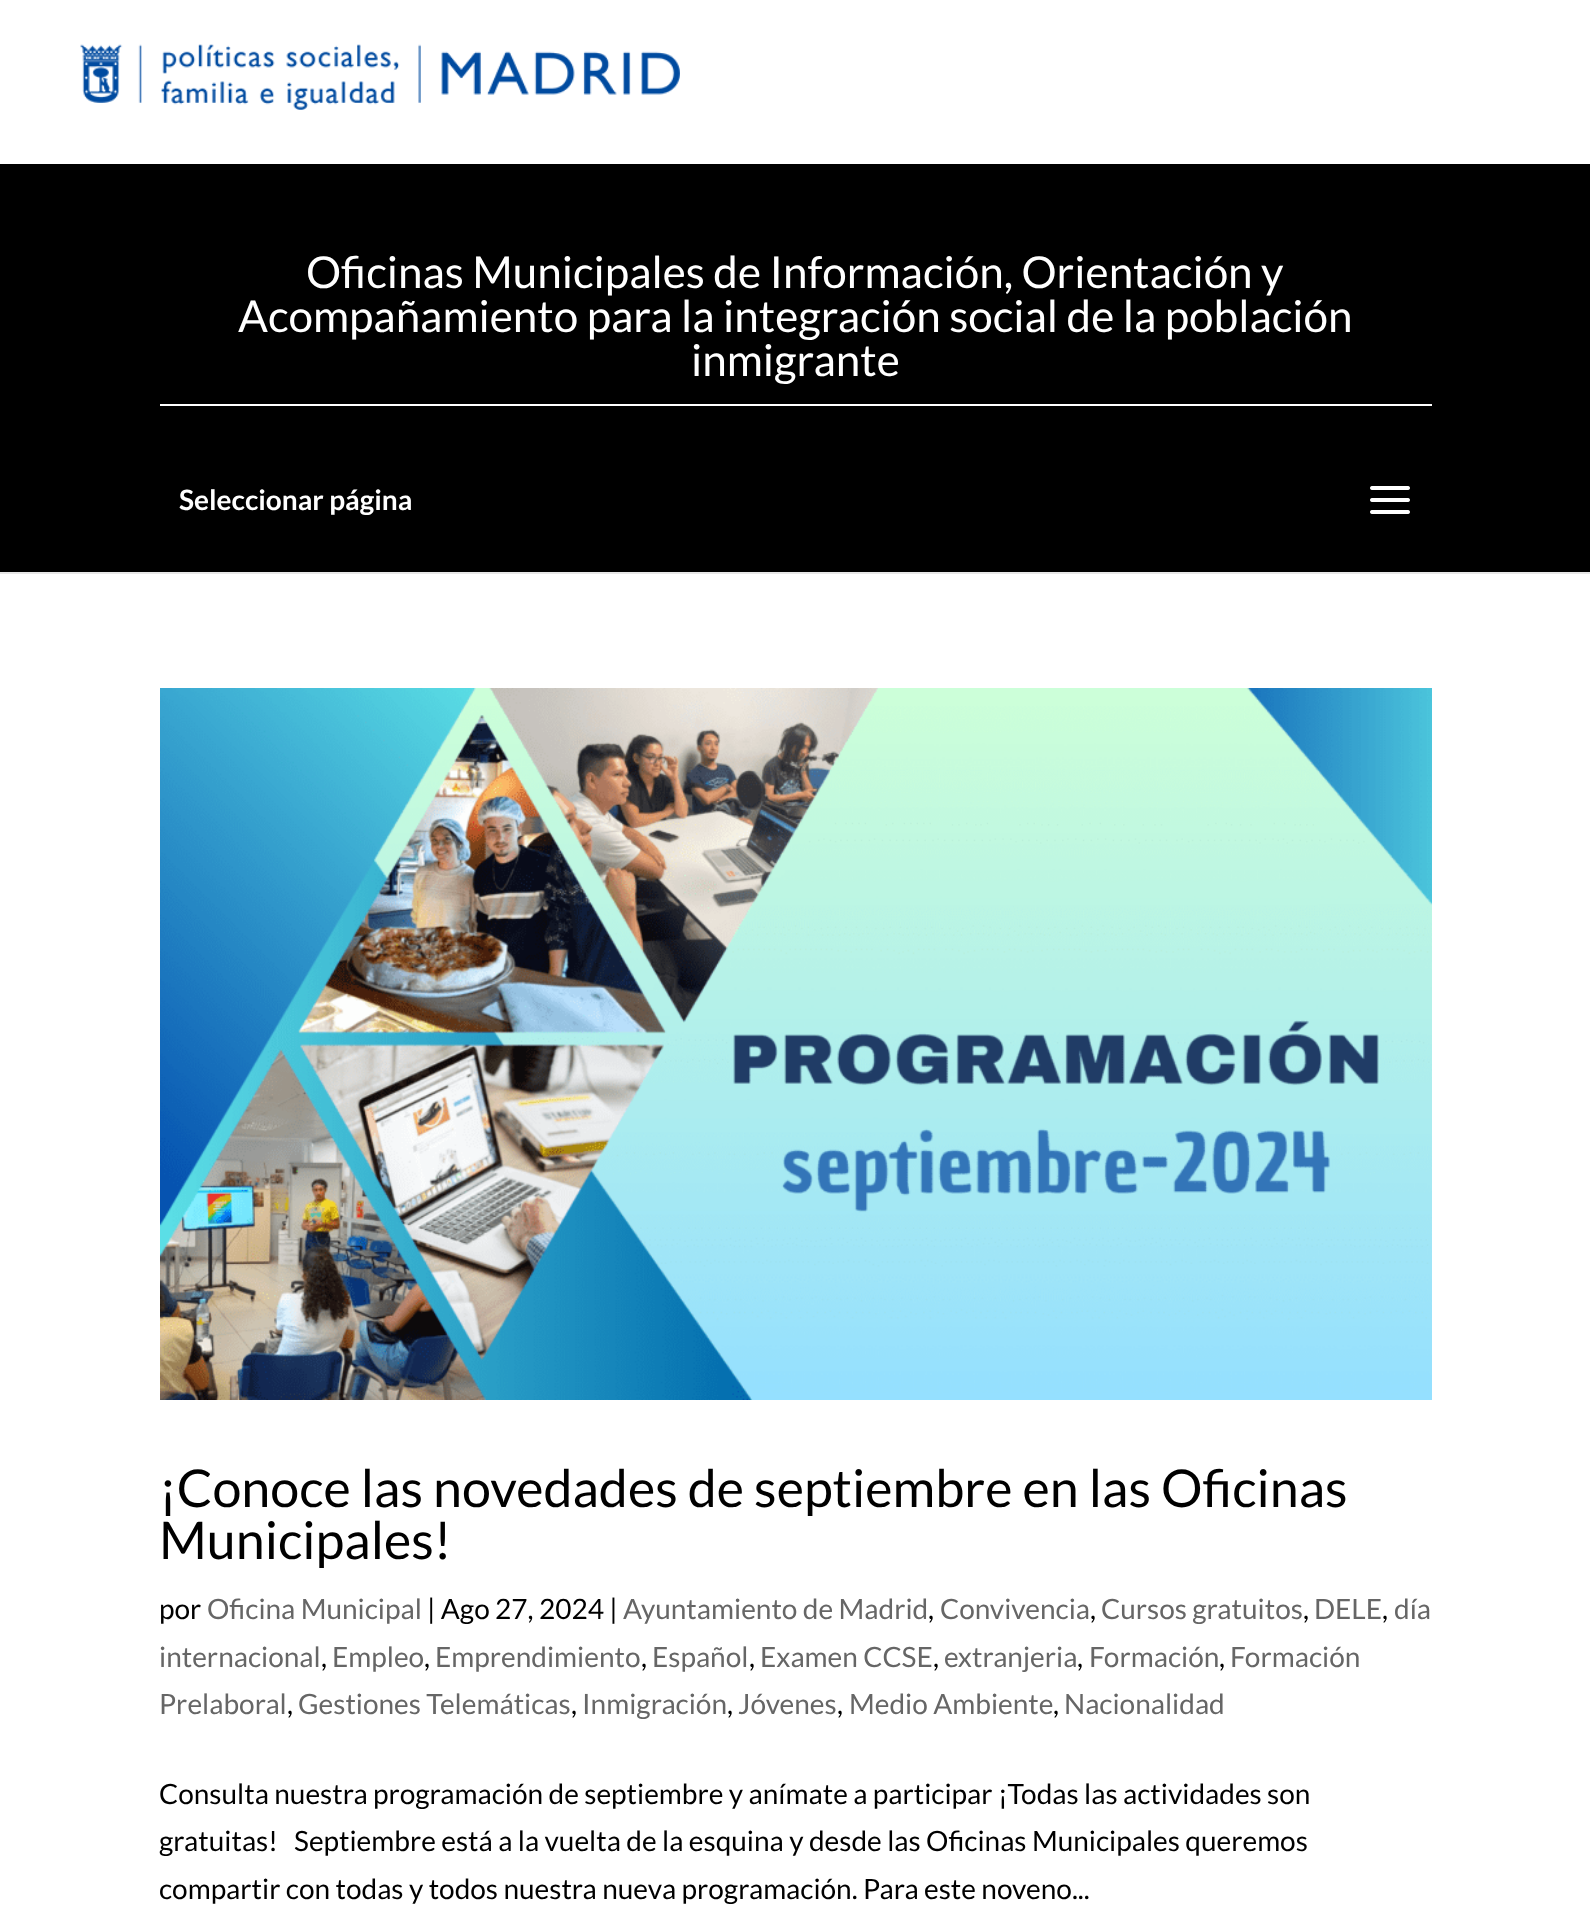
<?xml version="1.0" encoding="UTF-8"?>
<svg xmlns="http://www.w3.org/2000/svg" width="1590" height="1909">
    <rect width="100%" height="100%" fill="#FFFFFF"/>
    <image x="80" y="44" width="600" height="66" href="img_01.png"/>
    <rect x="0" y="572" width="1590" height="2" fill="#E6E6E6"/>
    <rect x="0" y="164" width="1590" height="408" fill="#000000"/>
    <text x="306" y="288" font-family="Lato" font-size="44" fill="#FFFFFF">Oficinas Municipales de Información, Orientación y</text>
    <text x="238" y="332" font-family="Lato" font-size="44" fill="#FFFFFF">Acompañamiento para la integración social de la población</text>
    <text x="691" y="376" font-family="Lato" font-size="44" fill="#FFFFFF">inmigrante</text>
    <rect x="160" y="404" width="1272" height="2" fill="#FFFFFF"/>
    <text x="179" y="510" font-family="Lato" font-size="28" font-weight="700" fill="#FFFFFF">Seleccionar página</text>
    <image x="1370" y="486" width="40" height="28" href="img_02.png"/>
    <image x="160" y="688" width="1272" height="712" href="img_03.png"/>
    <text font-family="Lato" font-size="52" fill="#000000">
        <tspan x="159" y="1507">¡Conoce las novedades de septiembre en las Oficinas</tspan>
        <tspan x="159" y="1559">Municipales!</tspan>
    </text>
    <text x="159" y="1619" font-family="Lato" font-size="28" fill="#000000">por</text>
    <text x="207" y="1619" font-family="Lato" font-size="28" fill="#666666">Oficina Municipal</text>
    <text x="427" y="1619" font-family="Lato" font-size="28" fill="#000000">| Ago 27, 2024 |</text>
    <text x="623" y="1619" font-family="Lato" font-size="28" fill="#666666">Ayuntamiento de Madrid</text>
    <text x="928" y="1619" font-family="Lato" font-size="28" fill="#000000">,</text>
    <text x="940" y="1619" font-family="Lato" font-size="28" fill="#666666">Convivencia</text>
    <text x="1090" y="1619" font-family="Lato" font-size="28" fill="#000000">,</text>
    <text x="1101" y="1619" font-family="Lato" font-size="28" fill="#666666">Cursos gratuitos</text>
    <text x="1303" y="1619" font-family="Lato" font-size="28" fill="#000000">,</text>
    <text x="1314" y="1619" font-family="Lato" font-size="28" fill="#666666">DELE</text>
    <text x="1382" y="1619" font-family="Lato" font-size="28" fill="#000000">,</text>
    <text x="1394" y="1619" font-family="Lato" font-size="28" fill="#666666">día</text>
    <text x="159" y="1667" font-family="Lato" font-size="28" fill="#666666">internacional</text>
    <text x="321" y="1667" font-family="Lato" font-size="28" fill="#000000">,</text>
    <text x="332" y="1667" font-family="Lato" font-size="28" fill="#666666">Empleo</text>
    <text x="424" y="1667" font-family="Lato" font-size="28" fill="#000000">,</text>
    <text x="435" y="1667" font-family="Lato" font-size="28" fill="#666666">Emprendimiento</text>
    <text x="641" y="1667" font-family="Lato" font-size="28" fill="#000000">,</text>
    <text x="652" y="1667" font-family="Lato" font-size="28" fill="#666666">Español</text>
    <text x="749" y="1667" font-family="Lato" font-size="28" fill="#000000">,</text>
    <text x="760" y="1667" font-family="Lato" font-size="28" fill="#666666">Examen CCSE</text>
    <text x="933" y="1667" font-family="Lato" font-size="28" fill="#000000">,</text>
    <text x="944" y="1667" font-family="Lato" font-size="28" fill="#666666">extranjeria</text>
    <text x="1077" y="1667" font-family="Lato" font-size="28" fill="#000000">,</text>
    <text x="1089" y="1667" font-family="Lato" font-size="28" fill="#666666">Formación</text>
    <text x="1219" y="1667" font-family="Lato" font-size="28" fill="#000000">,</text>
    <text x="1230" y="1667" font-family="Lato" font-size="28" fill="#666666">Formación</text>
    <text x="159" y="1714" font-family="Lato" font-size="28" fill="#666666">Prelaboral</text>
    <text x="287" y="1714" font-family="Lato" font-size="28" fill="#000000">,</text>
    <text x="298" y="1714" font-family="Lato" font-size="28" fill="#666666">Gestiones Telemáticas</text>
    <text x="571" y="1714" font-family="Lato" font-size="28" fill="#000000">,</text>
    <text x="582" y="1714" font-family="Lato" font-size="28" fill="#666666">Inmigración</text>
    <text x="727" y="1714" font-family="Lato" font-size="28" fill="#000000">,</text>
    <text x="738" y="1714" font-family="Lato" font-size="28" fill="#666666">Jóvenes</text>
    <text x="837" y="1714" font-family="Lato" font-size="28" fill="#000000">,</text>
    <text x="849" y="1714" font-family="Lato" font-size="28" fill="#666666">Medio Ambiente</text>
    <text x="1053" y="1714" font-family="Lato" font-size="28" fill="#000000">,</text>
    <text x="1064" y="1714" font-family="Lato" font-size="28" fill="#666666">Nacionalidad</text>
    <text font-family="Lato" font-size="28" fill="#000000" xml:space="preserve"><tspan x="159" y="1804">Consulta nuestra programación de septiembre y anímate a participar ¡Todas las actividades son</tspan><tspan x="159" y="1851">gratuitas!   Septiembre está a la vuelta de la esquina y desde las Oficinas Municipales queremos</tspan><tspan x="159" y="1899">compartir con todas y todos nuestra nueva programación. Para este noveno...</tspan></text>
</svg>
